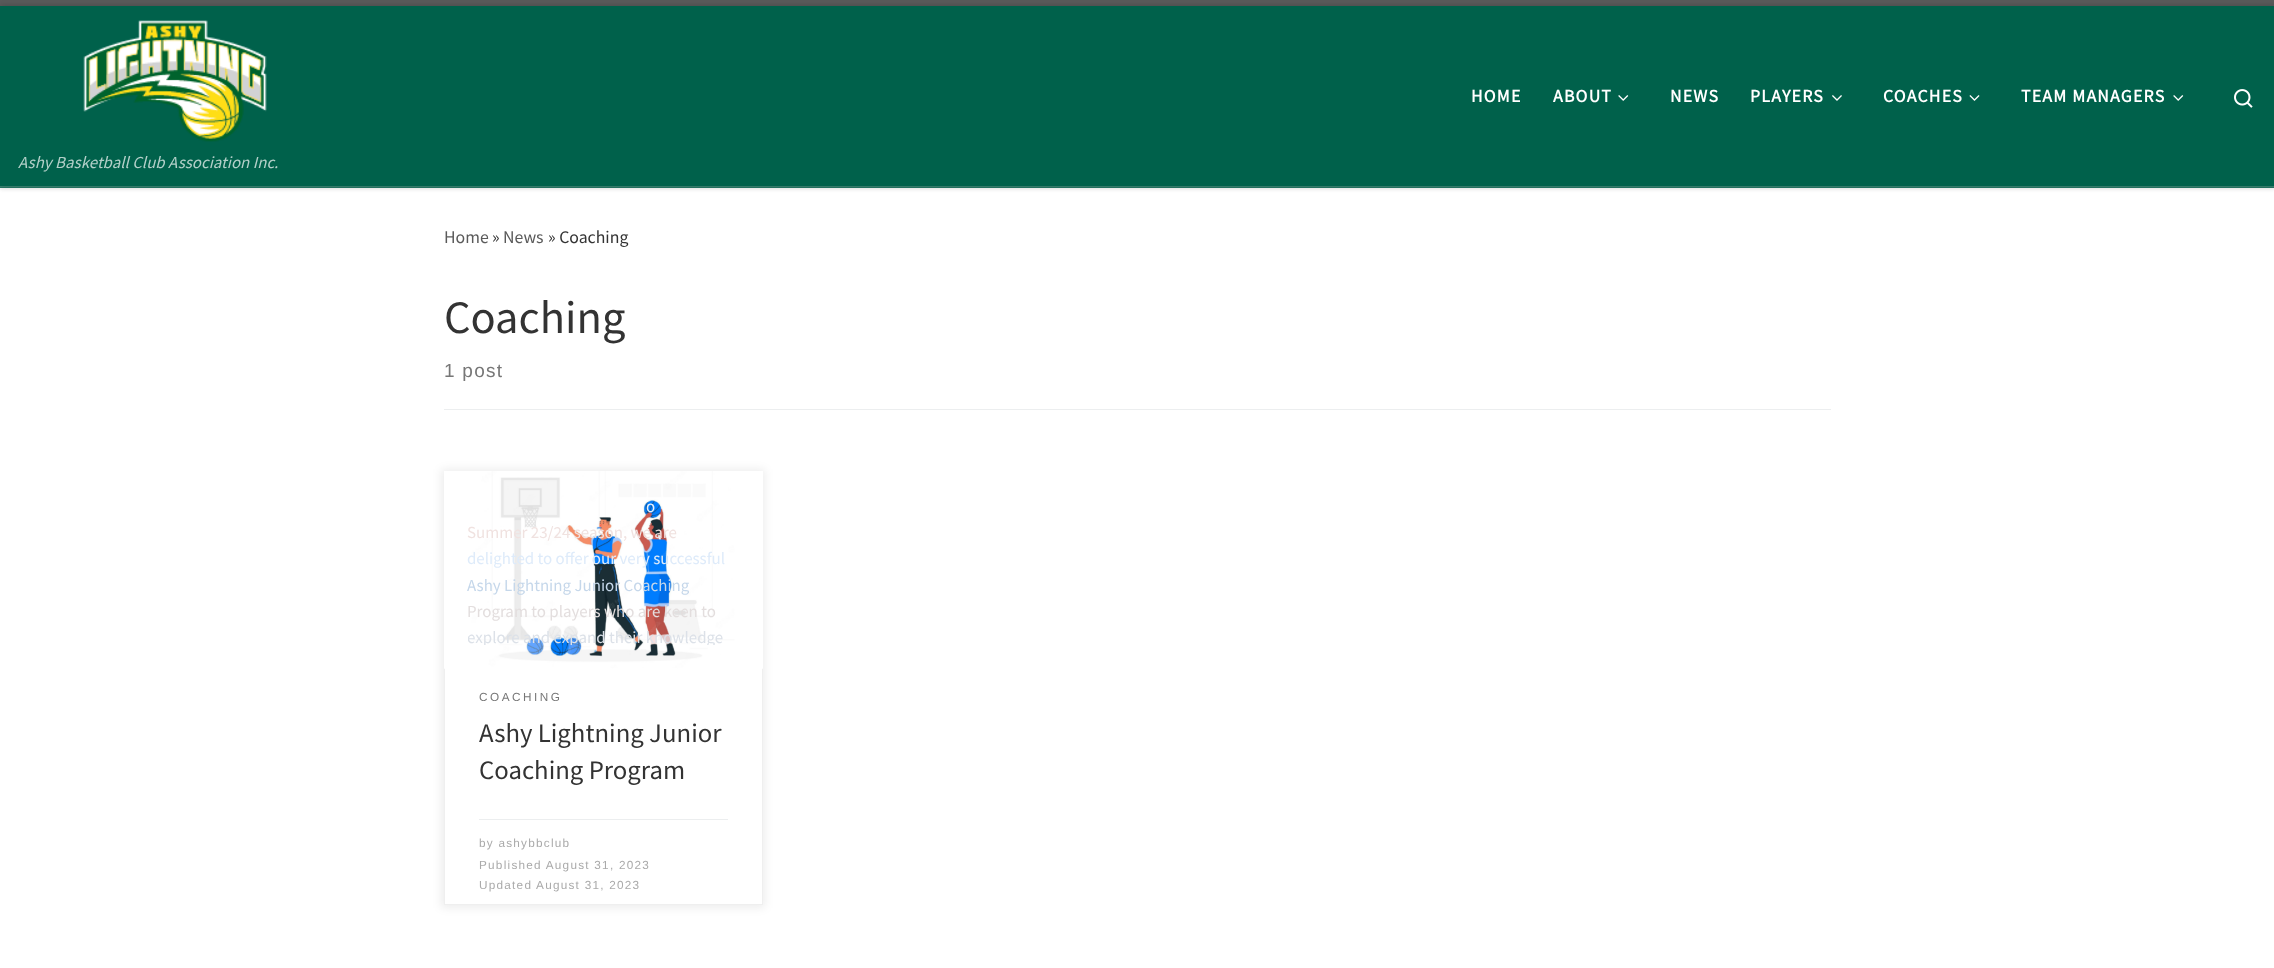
<?xml version="1.0" encoding="UTF-8"?>
<svg xmlns="http://www.w3.org/2000/svg" width="2274" height="968">
    <defs>
        <filter id="blur1" x="-50%" y="-200%" width="200%" height="500%"><feGaussianBlur stdDeviation="1"/></filter>
        <filter id="blur2" x="-50%" y="-200%" width="200%" height="500%"><feGaussianBlur stdDeviation="3"/></filter>
        <filter id="blur3" x="-50%" y="-200%" width="200%" height="500%"><feGaussianBlur stdDeviation="4"/></filter>
        <clipPath id="clip1"><rect x="468" y="495" width="271" height="150"/></clipPath>
    </defs>
    <rect width="100%" height="100%" fill="#FFFFFF"/>
    <rect x="0" y="3" width="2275" height="187" fill="#666666" fill-opacity="0.08" filter="url(#blur1)"/>
    <rect x="0" y="187" width="2274" height="1" fill="#00614B"/>
    <rect x="0" y="0" width="2274" height="6" fill="#5A5A5A"/>
    <rect x="0" y="186" width="2274" height="1" fill="#176F5B"/>
    <rect x="0" y="186" width="2274" height="2" fill="#FFFFFF" fill-opacity="0.15"/>
    <rect x="0" y="6" width="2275" height="180" fill="#000000" fill-opacity="0.2" filter="url(#blur2)"/>
    <rect x="0" y="6" width="2274" height="180" fill="#00614B"/>
    <text x="1471" y="102" font-family="Source Sans Pro" font-size="17.75" font-weight="700" letter-spacing="1.25" fill="#FFFFFF">HOME</text>
    <text x="1553" y="102" font-family="Source Sans Pro" font-size="17.75" font-weight="700" letter-spacing="1.25" fill="#FFFFFF">ABOUT</text>
    <image x="1618" y="95" width="11" height="6" href="img_01.png"/>
    <text x="1670" y="102" font-family="Source Sans Pro" font-size="17.75" font-weight="700" letter-spacing="1.25" fill="#FFFFFF">NEWS</text>
    <text x="1750" y="102" font-family="Source Sans Pro" font-size="17.75" font-weight="700" letter-spacing="1.25" fill="#FFFFFF">PLAYERS</text>
    <image x="1832" y="95" width="10" height="6" href="img_02.png"/>
    <text x="1883" y="102" font-family="Source Sans Pro" font-size="17.75" font-weight="700" letter-spacing="1.25" fill="#FFFFFF">COACHES</text>
    <image x="1969" y="95" width="11" height="6" href="img_03.png"/>
    <text x="2021" y="102" font-family="Source Sans Pro" font-size="17.75" font-weight="700" letter-spacing="1.25" fill="#FFFFFF">TEAM MANAGERS</text>
    <image x="2173" y="95" width="11" height="6" href="img_01.png"/>
    <image x="2234" y="89" width="19" height="19" href="img_04.png"/>
    <image x="83" y="20" width="184" height="122" href="img_05.png"/>
    <text x="18" y="168" font-family="Source Sans Pro" font-size="16.9" font-style="italic" fill="#B3D0C9">Ashy Basketball Club Association Inc.</text>
    <text x="444" y="243" font-family="Source Sans Pro" font-size="17.75" fill="#5A5A5A">Home</text>
    <text x="492" y="243" font-family="Source Sans Pro" font-size="17.75" fill="#333333">»</text>
    <text x="503" y="243" font-family="Source Sans Pro" font-size="17.75" fill="#5A5A5A">News</text>
    <text x="548" y="243" font-family="Source Sans Pro" font-size="17.75" fill="#333333">» Coaching</text>
    <text x="444" y="333" font-family="Source Sans Pro" font-size="46.5" fill="#333333">Coaching</text>
    <text x="444" y="377" font-family="Liberation Sans" font-size="19" letter-spacing="1.25" fill="#777777">1 post</text>
    <rect x="444" y="409" width="1387" height="1" fill="#ECEEEF"/>
    <rect x="441" y="469" width="324" height="439" fill="#000000" fill-opacity="0.07" filter="url(#blur3)"/>
    <rect x="445" y="668" width="317" height="236" fill="#FFFFFF"/>
    <rect x="444.5" y="471.5" width="318" height="433" fill="none" stroke="#EFEFEF"/>
    <image x="444" y="471" width="319" height="198" href="img_06.png"/>
    <text x="646" y="512" font-family="Source Sans Pro" font-size="16.9" fill="#EAF1F9">o</text>
    <text x="467" y="538" font-family="Source Sans Pro" font-size="16.9" fill="#F0E2E0">Summer 23/24 season, we are</text>
    <text x="467" y="564" font-family="Source Sans Pro" font-size="16.9" fill="#DEEBFA">delighted to offer our very successful</text>
    <text x="467" y="591" font-family="Source Sans Pro" font-size="16.9" fill="#C5D7EA">Ashy Lightning Junior Coaching</text>
    <text x="467" y="617" font-family="Source Sans Pro" font-size="16.9" fill="#E3DEDE">Program to players who are keen to</text>
    <g clip-path="url(#clip1)">
        <text x="467" y="643" font-family="Source Sans Pro" font-size="16.9" fill="#DCE1E8">explore and expand their knowledge</text>
    </g>
    <text x="479" y="701" font-family="Liberation Sans" font-size="11.75" letter-spacing="2.5" fill="#777777">COACHING</text>
    <text font-family="Source Sans Pro" font-size="26.75" fill="#333333">
        <tspan x="479" y="742">Ashy Lightning Junior</tspan>
        <tspan x="479" y="779">Coaching Program</tspan>
    </text>
    <rect x="479" y="819" width="249" height="1" fill="#ECEEEF"/>
    <text font-family="Liberation Sans" font-size="11.75" letter-spacing="1.25" fill="#AAAAAA">
        <tspan x="479" y="847">by ashybbclub</tspan>
        <tspan x="479" y="869">Published August 31, 2023</tspan>
        <tspan x="479" y="889">Updated August 31, 2023</tspan>
    </text>
</svg>
